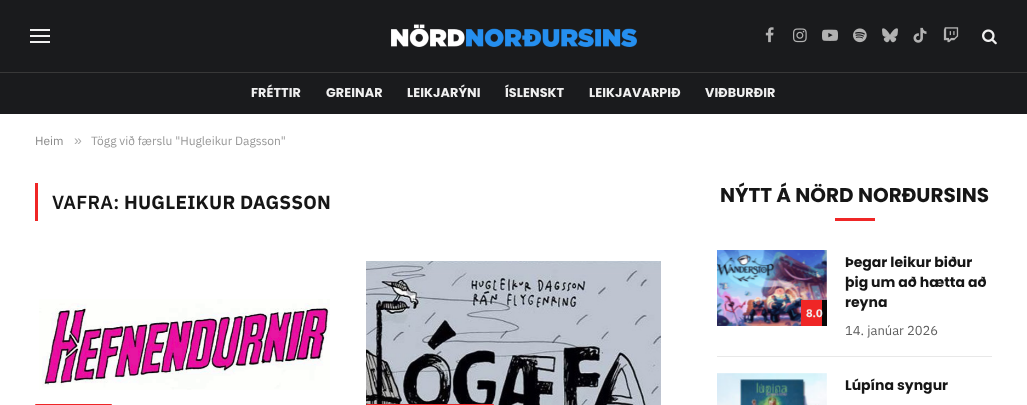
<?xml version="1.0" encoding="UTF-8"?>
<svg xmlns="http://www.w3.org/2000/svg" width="1027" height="405">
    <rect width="100%" height="100%" fill="#FFFFFF"/>
    <rect x="0" y="0" width="1027" height="72" fill="#1A1B1D"/>
    <rect x="30" y="41" width="20" height="2" fill="#F0F0F0"/>
    <rect x="30" y="29" width="20" height="2" fill="#F0F0F0"/>
    <rect x="30" y="35" width="20" height="2" fill="#F0F0F0"/>
    <image x="391" y="24" width="246" height="23" href="img_01.png"/>
    <image x="765" y="27" width="9" height="16" href="img_02.png"/>
    <image x="793" y="28" width="14" height="15" href="img_03.png"/>
    <image x="822" y="29" width="16" height="12" href="img_04.png"/>
    <image x="853" y="28" width="14" height="15" href="img_05.png"/>
    <image x="882" y="28" width="16" height="15" href="img_06.png"/>
    <image x="913" y="27" width="14" height="16" href="img_07.png"/>
    <image x="943" y="27" width="16" height="16" href="img_08.png"/>
    <image x="982" y="29" width="15" height="16" href="img_09.png"/>
    <rect x="0" y="73" width="1027" height="41" fill="#1A1B1D"/>
    <rect x="0" y="72" width="1027" height="1" fill="#383838"/>
    <text x="251" y="97" font-family="Poppins" font-size="12.75" font-weight="700" letter-spacing="0.1" fill="#F0F0F0">FRÉTTIR</text>
    <text x="326" y="97" font-family="Poppins" font-size="12.75" font-weight="700" letter-spacing="0.1" fill="#F0F0F0">GREINAR</text>
    <text x="407" y="97" font-family="Poppins" font-size="12.75" font-weight="700" letter-spacing="0.1" fill="#F0F0F0">LEIKJARÝNI</text>
    <text x="505" y="97" font-family="Poppins" font-size="12.75" font-weight="700" letter-spacing="0.1" fill="#F0F0F0">ÍSLENSKT</text>
    <text x="589" y="97" font-family="Poppins" font-size="12.75" font-weight="700" letter-spacing="0.1" fill="#F0F0F0">LEIKJAVARPIÐ</text>
    <text x="705" y="97" font-family="Poppins" font-size="12.75" font-weight="700" letter-spacing="0.1" fill="#F0F0F0">VIÐBURÐIR</text>
    <text x="35" y="145" font-family="IBM Plex Sans" font-size="12" fill="#8A8A8A">Heim</text>
    <text x="74" y="145" font-family="Liberation Sans" font-size="14" fill="#ADADAD">»</text>
    <text x="91" y="145" font-family="IBM Plex Sans" font-size="12" fill="#999999">Tögg við færslu "Hugleikur Dagsson"</text>
    <rect x="35" y="183" width="3" height="38" fill="#EF2626"/>
    <text x="52" y="209" font-family="IBM Plex Sans" font-size="19" font-weight="600" letter-spacing="0.2" fill="#161616">VAFRA:</text>
    <text x="124" y="209" font-family="IBM Plex Sans" font-size="19" font-weight="700" letter-spacing="0.2" fill="#161616">HUGLEIKUR DAGSSON</text>
    <image x="39" y="299" width="291" height="91" href="img_10.png"/>
    <rect x="35" y="404" width="77" height="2" rx="1" fill="#EF2626"/>
    <image x="366" y="261" width="295" height="144" href="img_11.png"/>
    <rect x="366" y="404" width="128" height="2" rx="1" fill="#EF2626"/>
    <text x="720" y="202" font-family="Poppins" font-size="20" font-weight="700" fill="#161616">NÝTT Á NÖRD NORÐURSINS</text>
    <rect x="835" y="218" width="40" height="3" fill="#EF2626"/>
    <image x="717" y="250" width="110" height="76" href="img_12.png"/>
    <rect x="822" y="300" width="5" height="26" fill="#080808"/>
    <rect x="801" y="300" width="21" height="26" fill="#EF2626"/>
    <text x="806" y="317" font-family="IBM Plex Sans" font-size="11" font-weight="700" fill="#F0F0F0">8.0</text>
    <text font-family="Poppins" font-size="14" font-weight="700" fill="#161616">
        <tspan x="845" y="267">Þegar leikur biður</tspan>
        <tspan x="845" y="287">þig um að hætta að</tspan>
        <tspan x="845" y="307">reyna</tspan>
    </text>
    <text x="845" y="335" font-family="IBM Plex Sans" font-size="13" fill="#5E5E5E">14. janúar 2026</text>
    <rect x="717" y="356" width="275" height="1" fill="#E8E8E8"/>
    <image x="717" y="373" width="110" height="32" href="img_13.png"/>
    <text x="845" y="390" font-family="Poppins" font-size="14" font-weight="700" fill="#161616">Lúpína syngur</text>
</svg>
